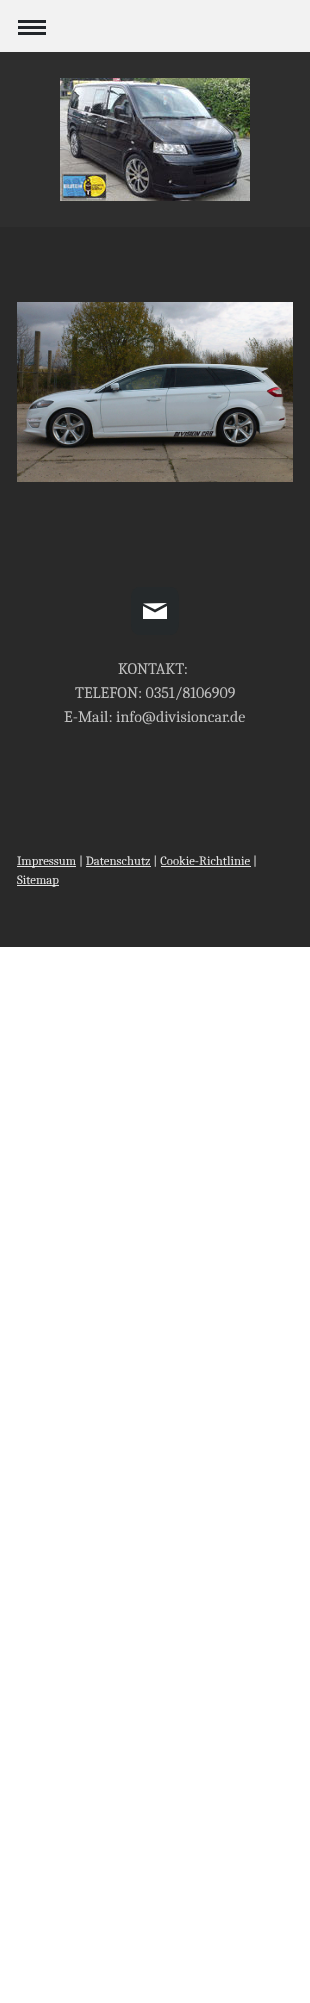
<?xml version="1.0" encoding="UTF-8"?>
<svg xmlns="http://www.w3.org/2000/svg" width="310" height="2003">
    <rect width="100%" height="100%" fill="#FFFFFF"/>
    <rect x="0" y="0" width="310" height="52" fill="#F2F2F2"/>
    <rect x="18" y="26" width="28" height="3" fill="#212529"/>
    <rect x="18" y="20" width="28" height="3" fill="#212529"/>
    <rect x="18" y="32" width="28" height="3" fill="#212529"/>
    <rect x="0" y="52" width="310" height="175" fill="#2E2E2E"/>
    <image x="60" y="78" width="190" height="123" href="img_01.png"/>
    <rect x="0" y="227" width="310" height="720" fill="#292929"/>
    <image x="17" y="302" width="276" height="180" href="img_02.png"/>
    <path d="M 170 635 H 138 C 131 633 131 627 131 621 V 601 C 131 595 131 589 138 587 H 170 C 178 587 179 595 179 601 V 621 C 179 627 178 635 170 635 Z" fill="#25292B"/>
    <path d="M 167 619 H 143 V 606 L 155 612.5 L 167 606 Z M 167 603 L 143 603.5 L 155 609.5 Z" fill="#FFFFFF"/>
    <text x="118" y="674" font-family="Caladea" font-size="16" fill="#C0C0C0">KONTAKT:</text>
    <text x="75" y="698" font-family="Caladea" font-size="16" fill="#C0C0C0">TELEFON: 0351/8106909</text>
    <text x="64" y="722" font-family="Caladea" font-size="16" fill="#C0C0C0">E-Mail: info@divisioncar.de</text>
    <rect x="17" y="866" width="59" height="1" fill="#E6E6E6"/>
    <text x="17" y="865" font-family="Caladea" font-size="12.75" fill="#E6E6E6">Impressum | Datenschutz | Cookie-Richtlinie |</text>
    <rect x="86" y="866" width="65" height="1" fill="#E6E6E6"/>
    <rect x="161" y="866" width="90" height="1" fill="#E6E6E6"/>
    <rect x="17" y="885" width="42" height="1" fill="#E6E6E6"/>
    <text x="17" y="884" font-family="Caladea" font-size="12.75" fill="#E6E6E6">Sitemap</text>
</svg>
